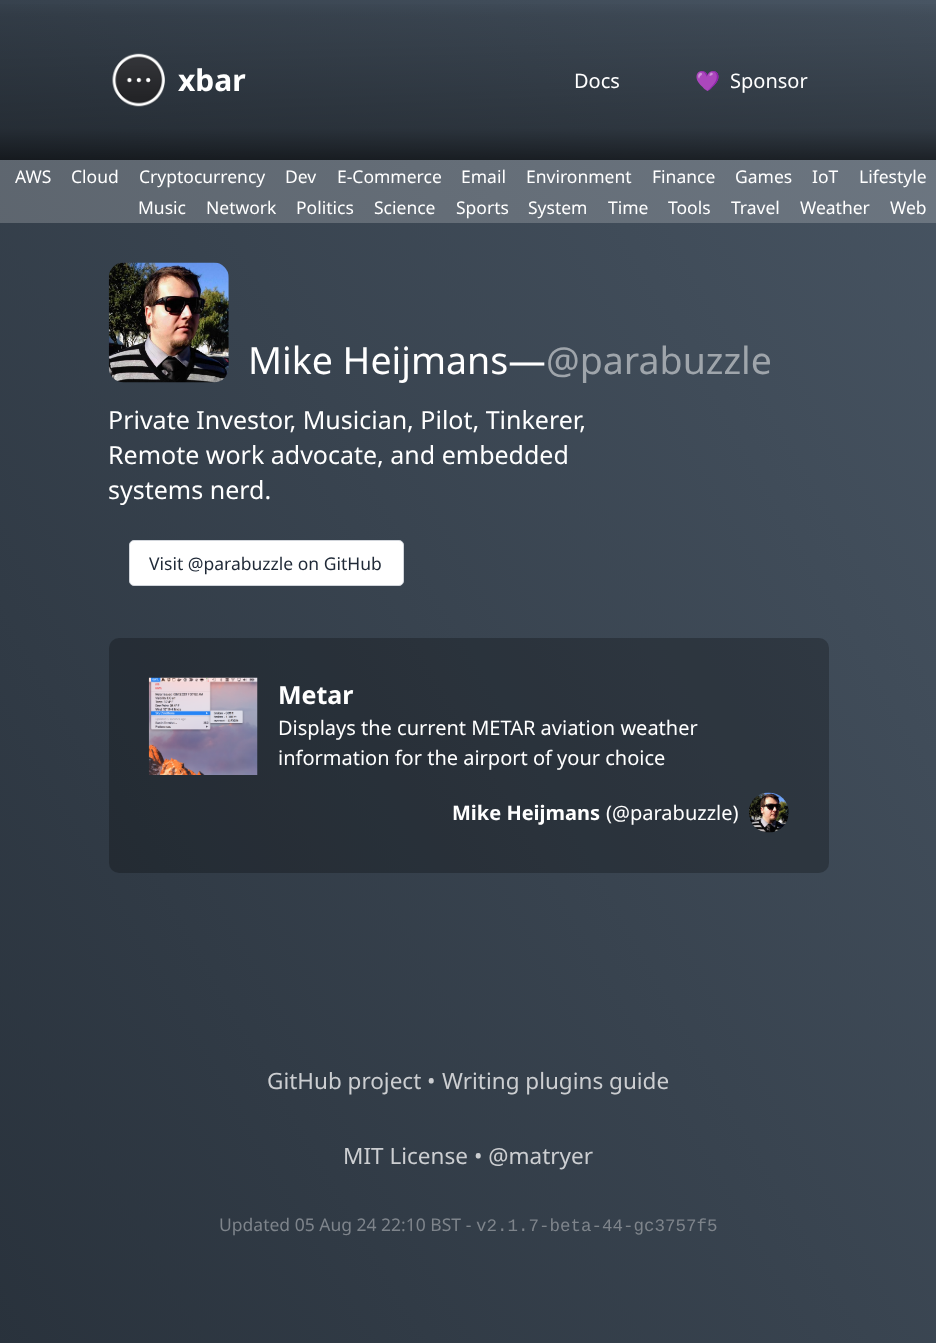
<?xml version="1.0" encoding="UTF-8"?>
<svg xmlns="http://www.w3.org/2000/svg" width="936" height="1343">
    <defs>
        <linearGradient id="g1" gradientUnits="userSpaceOnUse" x1="-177" y1="1052" x2="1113" y2="307"><stop offset="0" stop-color="#29323C"/><stop offset="1" stop-color="#485563"/></linearGradient>
        <linearGradient id="g2" gradientUnits="userSpaceOnUse" x1="-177" y1="1052" x2="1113" y2="307"><stop offset="0" stop-color="#545B63"/><stop offset="1" stop-color="#6D7782"/></linearGradient>
        <linearGradient id="g3" gradientUnits="userSpaceOnUse" x1="468" y1="0" x2="468" y2="160"><stop offset="0" stop-color="#000000" stop-opacity="0"/><stop offset="0.1" stop-color="#000000" stop-opacity="0.1"/><stop offset="0.8" stop-color="#000000" stop-opacity="0.3"/><stop offset="1" stop-color="#000000" stop-opacity="0.6"/></linearGradient>
    </defs>
    <rect width="100%" height="100%" fill="#FFFFFF"/>
    <rect x="0" y="0" width="936" height="1343" fill="url(#g1)"/>
    <rect x="0" y="160" width="936" height="63" fill="url(#g2)"/>
    <rect x="0" y="4" width="936" height="156" fill="url(#g3)"/>
    <image x="112" y="53" width="53" height="54" href="img_01.png"/>
    <text x="178" y="91" font-family="Noto Sans" font-size="30" font-weight="700" fill="#FFFFFF">xbar</text>
    <text x="574" y="88" font-family="Noto Sans" font-size="20" fill="#FFFFFF">Docs</text>
    <text x="695" y="88" font-family="Noto Color Emoji" font-size="20" fill="#FFFFFF">💜</text>
    <text x="730" y="88" font-family="Noto Sans" font-size="20" fill="#FFFFFF">Sponsor</text>
    <text x="15" y="183" font-family="Noto Sans" font-size="17.5" fill="#FFFFFF">AWS</text>
    <text x="71" y="183" font-family="Noto Sans" font-size="17.5" fill="#FFFFFF">Cloud</text>
    <text x="139" y="183" font-family="Noto Sans" font-size="17.5" fill="#FFFFFF">Cryptocurrency</text>
    <text x="285" y="183" font-family="Noto Sans" font-size="17.5" fill="#FFFFFF">Dev</text>
    <text x="337" y="183" font-family="Noto Sans" font-size="17.5" fill="#FFFFFF">E-Commerce</text>
    <text x="461" y="183" font-family="Noto Sans" font-size="17.5" fill="#FFFFFF">Email</text>
    <text x="526" y="183" font-family="Noto Sans" font-size="17.5" fill="#FFFFFF">Environment</text>
    <text x="652" y="183" font-family="Noto Sans" font-size="17.5" fill="#FFFFFF">Finance</text>
    <text x="735" y="183" font-family="Noto Sans" font-size="17.5" fill="#FFFFFF">Games</text>
    <text x="812" y="183" font-family="Noto Sans" font-size="17.5" fill="#FFFFFF">IoT</text>
    <text x="859" y="183" font-family="Noto Sans" font-size="17.5" fill="#FFFFFF">Lifestyle</text>
    <text x="138" y="214" font-family="Noto Sans" font-size="17.5" fill="#FFFFFF">Music</text>
    <text x="206" y="214" font-family="Noto Sans" font-size="17.5" fill="#FFFFFF">Network</text>
    <text x="296" y="214" font-family="Noto Sans" font-size="17.5" fill="#FFFFFF">Politics</text>
    <text x="374" y="214" font-family="Noto Sans" font-size="17.5" fill="#FFFFFF">Science</text>
    <text x="456" y="214" font-family="Noto Sans" font-size="17.5" fill="#FFFFFF">Sports</text>
    <text x="528" y="214" font-family="Noto Sans" font-size="17.5" fill="#FFFFFF">System</text>
    <text x="608" y="214" font-family="Noto Sans" font-size="17.5" fill="#FFFFFF">Time</text>
    <text x="668" y="214" font-family="Noto Sans" font-size="17.5" fill="#FFFFFF">Tools</text>
    <text x="731" y="214" font-family="Noto Sans" font-size="17.5" fill="#FFFFFF">Travel</text>
    <text x="800" y="214" font-family="Noto Sans" font-size="17.5" fill="#FFFFFF">Weather</text>
    <text x="890" y="214" font-family="Noto Sans" font-size="17.5" fill="#FFFFFF">Web</text>
    <image x="108" y="262" width="121" height="121" href="img_02.png"/>
    <text x="248" y="374" font-family="Noto Sans" font-size="37.5" fill="#FFFFFF">Mike Heijmans—</text>
    <text x="546" y="374" font-family="Noto Sans" font-size="37.5" fill="#9FA5AB">@parabuzzle</text>
    <text font-family="Noto Sans" font-size="25" fill="#FFFFFF">
        <tspan x="108" y="429">Private Investor, Musician, Pilot, Tinkerer,</tspan>
        <tspan x="108" y="464">Remote work advocate, and embedded</tspan>
        <tspan x="108" y="499">systems nerd.</tspan>
    </text>
    <rect x="129.5" y="540.5" width="274" height="45" rx="4.5" fill="#FFFFFF" stroke="#D1D5DB"/>
    <text x="149" y="570" font-family="Noto Sans" font-size="17.5" fill="#1F2937">Visit @parabuzzle on GitHub</text>
    <rect x="109" y="638" width="720" height="235" rx="10" fill="#000000" fill-opacity="0.25"/>
    <image x="148" y="677" width="110" height="98" href="img_03.png"/>
    <text x="278" y="704" font-family="Noto Sans" font-size="25" font-weight="700" fill="#FFFFFF">Metar</text>
    <text font-family="Noto Sans" font-size="20" fill="#FFFFFF">
        <tspan x="278" y="735">Displays the current METAR aviation weather</tspan>
        <tspan x="278" y="765">information for the airport of your choice</tspan>
    </text>
    <text x="452" y="820" font-family="Noto Sans" font-size="20" font-weight="700" fill="#FFFFFF">Mike Heijmans</text>
    <text x="606" y="820" font-family="Noto Sans" font-size="20" fill="#FFFFFF">(@parabuzzle)</text>
    <image x="749" y="792" width="40" height="41" href="img_04.png"/>
    <text x="267" y="1089" font-family="Noto Sans" font-size="22.5" fill="#CCCED1">GitHub project</text>
    <text x="427" y="1089" font-family="Noto Sans" font-size="22.5" fill="#CCCED1">•</text>
    <text x="442" y="1089" font-family="Noto Sans" font-size="22.5" fill="#CCCED1">Writing plugins guide</text>
    <text x="343" y="1164" font-family="Noto Sans" font-size="22.5" fill="#CCCED1">MIT License</text>
    <text x="474" y="1164" font-family="Noto Sans" font-size="22.5" fill="#CCCED1">• @matryer</text>
    <text x="219" y="1231" font-family="Noto Sans" font-size="17.5" fill="#7E848B">Updated 05 Aug 24 22:10 BST -</text>
    <text x="476" y="1231" font-family="Liberation Mono" font-size="17.5" fill="#7E848B">v2.1.7-beta-44-gc3757f5</text>
</svg>
